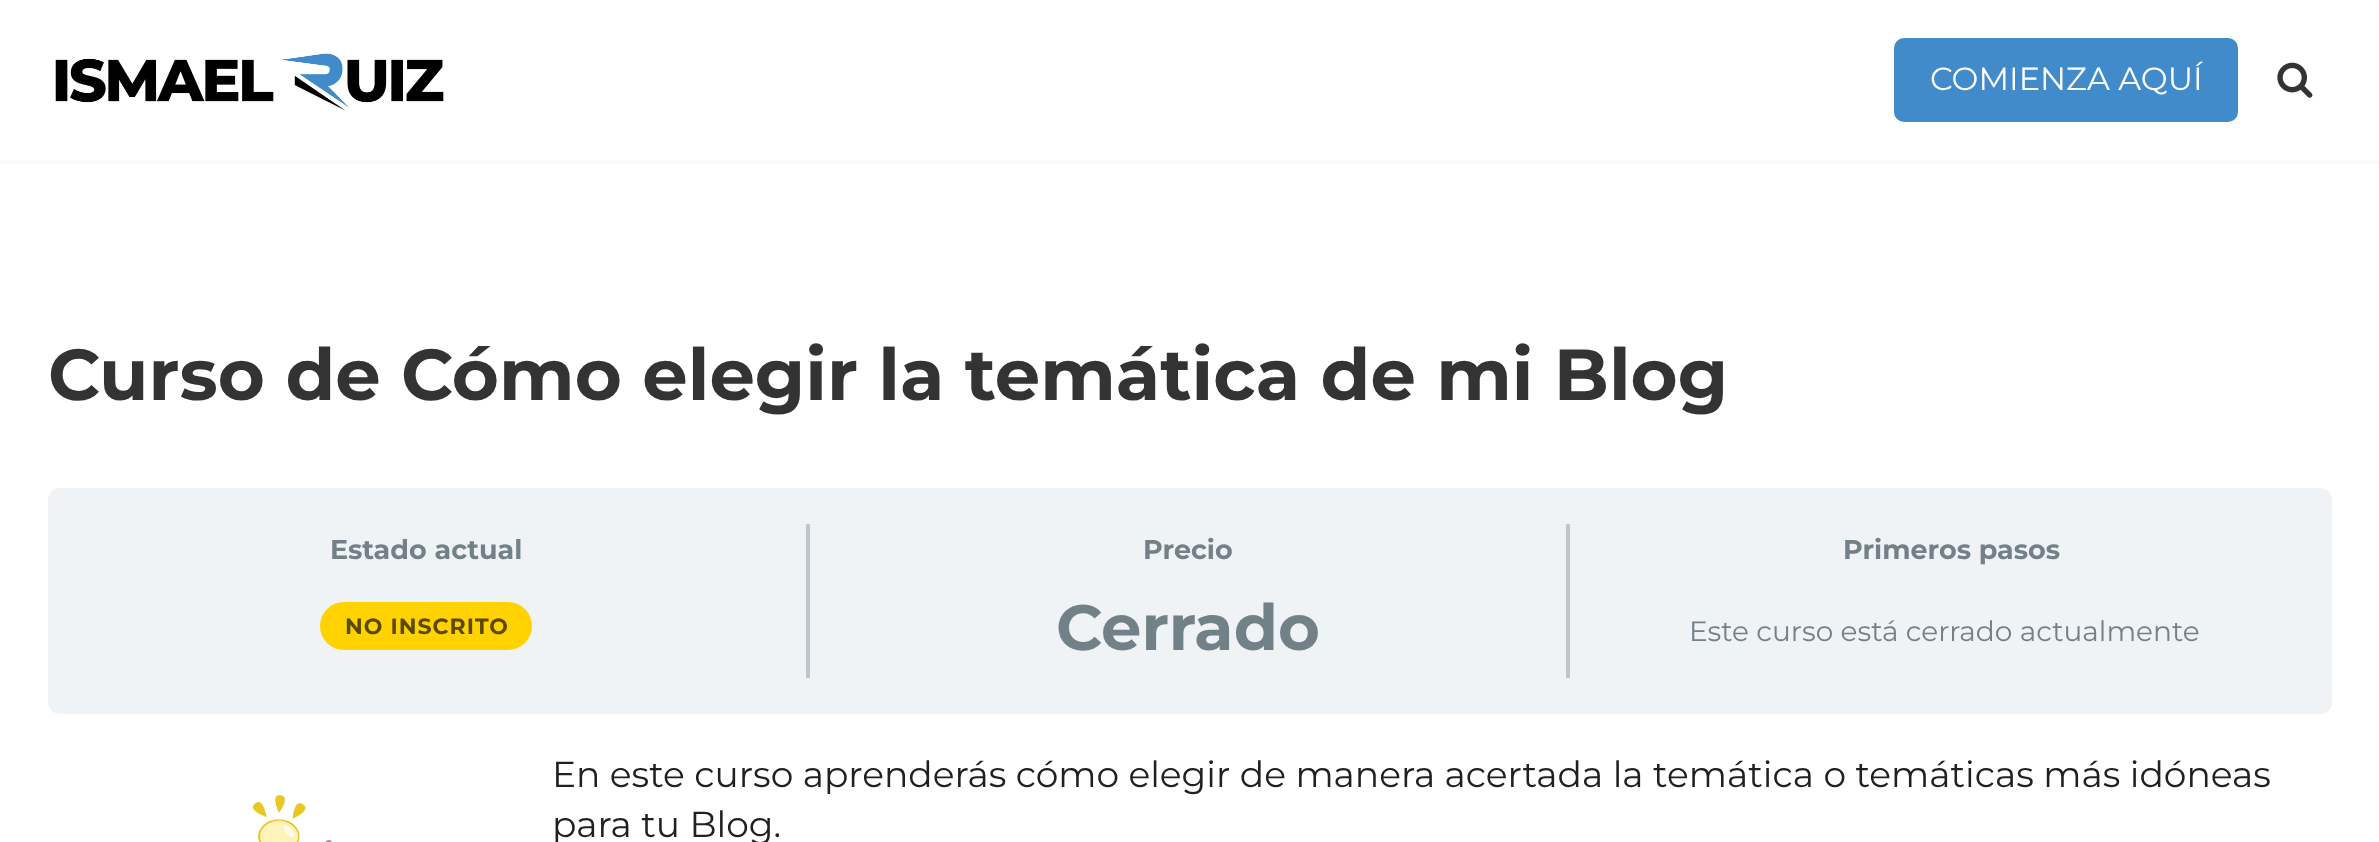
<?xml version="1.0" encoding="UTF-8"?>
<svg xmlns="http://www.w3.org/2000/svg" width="2379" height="842">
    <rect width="100%" height="100%" fill="#FFFFFF"/>
    <rect x="0" y="160" width="2379" height="4" fill="#F7FAFC"/>
    <image x="55" y="53" width="389" height="58" href="img_01.png"/>
    <rect x="1896" y="40" width="340" height="80" rx="8" fill="#428BCA" stroke="#428BCA" stroke-width="4"/>
    <text x="1930" y="90" font-family="Montserrat" font-size="32" fill="#FFFFFF">COMIENZA AQUÍ</text>
    <image x="2277" y="62" width="36" height="36" href="img_02.png"/>
    <text x="48" y="400" font-family="Montserrat" font-size="72" font-weight="700" fill="#333333">Curso de Cómo elegir la temática de mi Blog</text>
    <rect x="48" y="488" width="2284" height="226" rx="12" fill="#F0F3F6"/>
    <rect x="806" y="524" width="4" height="154" fill="#BEC5CB"/>
    <text x="330" y="559" font-family="Montserrat" font-size="27" font-weight="700" fill="#728188">Estado actual</text>
    <rect x="320" y="602" width="212" height="48" rx="24" fill="#FFD200"/>
    <text x="345" y="634" font-family="Montserrat" font-size="22" font-weight="700" letter-spacing="1" fill="#594A00">NO INSCRITO</text>
    <rect x="1566" y="524" width="4" height="154" fill="#BEC5CB"/>
    <text x="1143" y="559" font-family="Montserrat" font-size="27" font-weight="700" fill="#728188">Precio</text>
    <text x="1056" y="650" font-family="Montserrat" font-size="64" font-weight="700" fill="#728188">Cerrado</text>
    <text x="1843" y="559" font-family="Montserrat" font-size="27" font-weight="700" fill="#728188">Primeros pasos</text>
    <text x="1689" y="641" font-family="Montserrat" font-size="28" fill="#728188">Este curso está cerrado actualmente</text>
    <image x="252" y="794" width="80" height="48" href="img_03.png"/>
    <text font-family="Montserrat" font-size="36" fill="#202020">
        <tspan x="552" y="787">En este curso aprenderás cómo elegir de manera acertada la temática o temáticas más idóneas</tspan>
        <tspan x="552" y="837">para tu Blog.</tspan>
    </text>
</svg>
